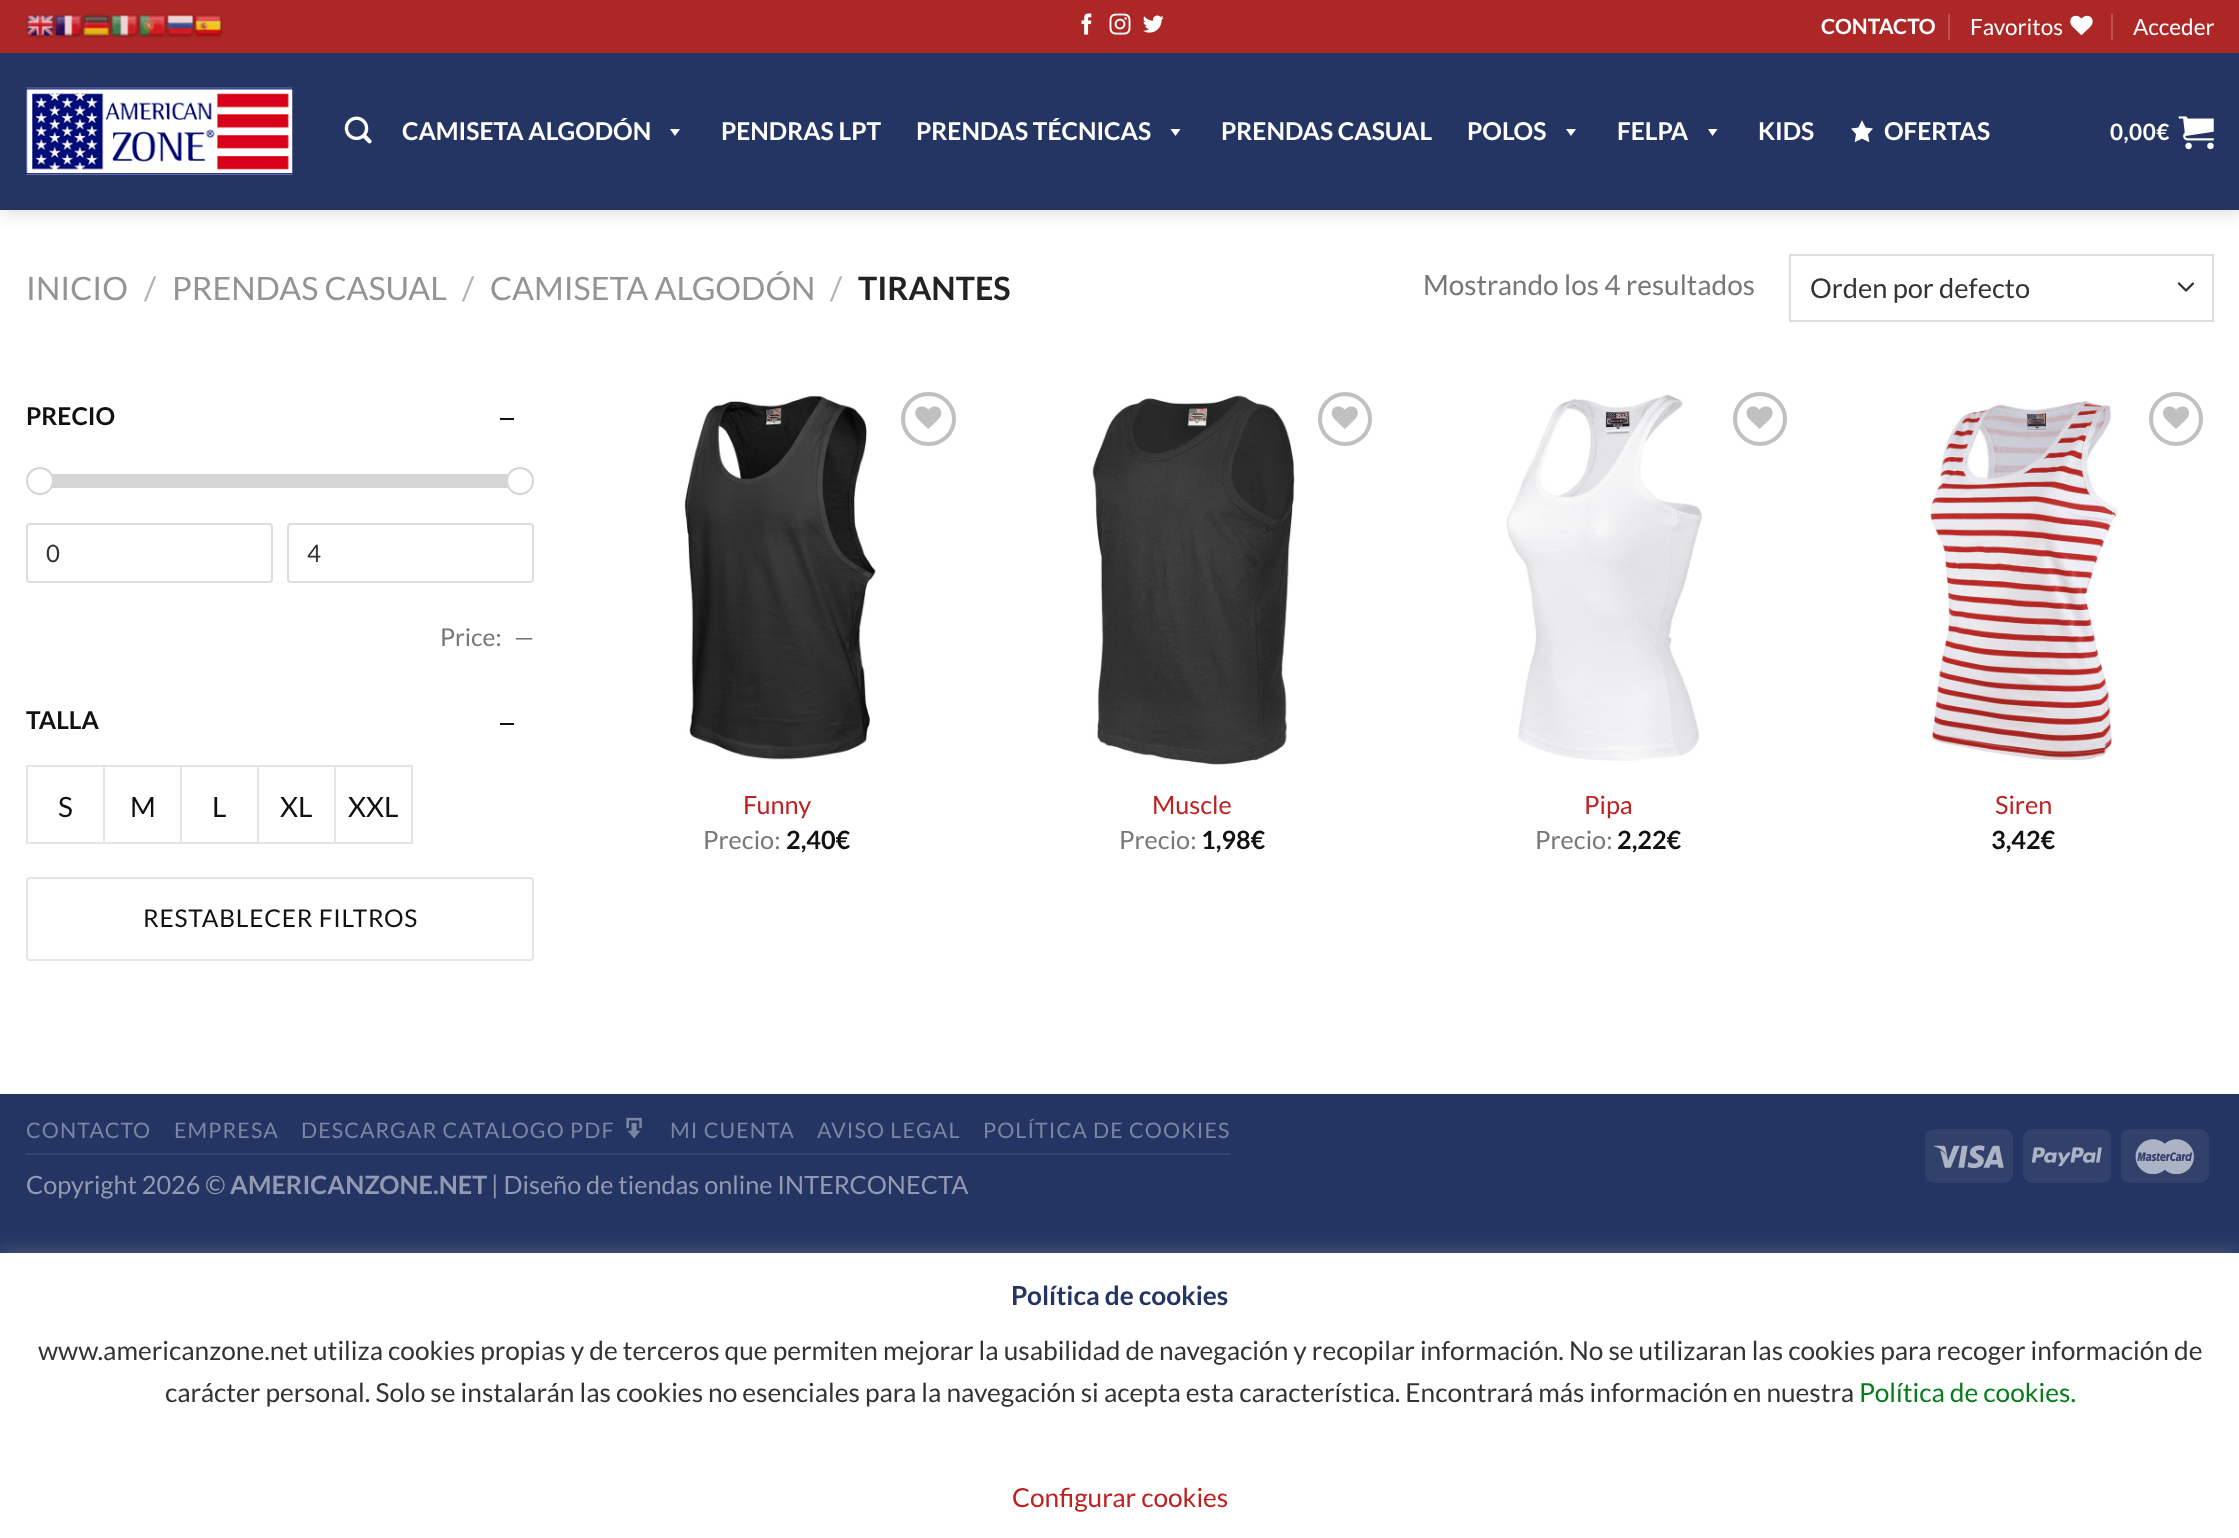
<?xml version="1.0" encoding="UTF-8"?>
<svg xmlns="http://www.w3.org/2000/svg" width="2239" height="1538">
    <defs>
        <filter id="blur1" x="-50%" y="-200%" width="200%" height="500%"><feGaussianBlur stdDeviation="9"/></filter>
    </defs>
    <rect width="100%" height="100%" fill="#243563"/>
    <rect x="0" y="210" width="2239" height="884" fill="#FFFFFF"/>
    <rect x="2" y="2" width="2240" height="210" fill="#000000" fill-opacity="0.15" filter="url(#blur1)"/>
    <rect x="0" y="0" width="2239" height="53" fill="#AD2727"/>
    <image x="26" y="14" width="29" height="24" href="img_01.png"/>
    <image x="54" y="14" width="29" height="24" href="img_02.png"/>
    <image x="82" y="14" width="29" height="24" href="img_03.png"/>
    <image x="110" y="14" width="29" height="24" href="img_04.png"/>
    <image x="138" y="14" width="29" height="24" href="img_05.png"/>
    <image x="166" y="14" width="29" height="24" href="img_06.png"/>
    <image x="194" y="14" width="29" height="24" href="img_07.png"/>
    <image x="1081" y="13" width="11" height="22" href="img_08.png"/>
    <image x="1109" y="13" width="22" height="22" href="img_09.png"/>
    <image x="1143" y="15" width="21" height="18" href="img_10.png"/>
    <text x="1821" y="34" font-family="Lato" font-size="21" font-weight="700" fill="#FFFFFF">CONTACTO</text>
    <rect x="1948" y="14" width="2" height="26" fill="#BD5252"/>
    <text x="1970" y="35" font-family="Lato" font-size="22.5" fill="#FFFFFF">Favoritos</text>
    <image x="2070" y="15" width="23" height="20" href="img_11.png"/>
    <rect x="2111" y="14" width="2" height="26" fill="#BD5252"/>
    <text x="2133" y="35" font-family="Lato" font-size="22.5" fill="#FFFFFF">Acceder</text>
    <rect x="0" y="53" width="2239" height="157" fill="#243563"/>
    <image x="26" y="87" width="267" height="88" href="img_12.png"/>
    <image x="344" y="116" width="28" height="28" href="img_13.png"/>
    <text x="402" y="140" font-family="Lato" font-size="24.5" font-weight="700" fill="#FFFFFF">CAMISETA ALGODÓN</text>
    <path d="M 680 129 L 675 136 L 670 129 Z" fill="#FFFFFF"/>
    <text x="721" y="140" font-family="Lato" font-size="24.5" font-weight="700" fill="#FFFFFF">PENDRAS LPT</text>
    <text x="916" y="140" font-family="Lato" font-size="24.5" font-weight="700" fill="#FFFFFF">PRENDAS TÉCNICAS</text>
    <path d="M 1180.5 129 L 1175.5 136 L 1170.5 129 Z" fill="#FFFFFF"/>
    <text x="1221" y="140" font-family="Lato" font-size="24.5" font-weight="700" fill="#FFFFFF">PRENDAS CASUAL</text>
    <text x="1467" y="140" font-family="Lato" font-size="24.5" font-weight="700" fill="#FFFFFF">POLOS</text>
    <path d="M 1576 129 L 1571 136 L 1566 129 Z" fill="#FFFFFF"/>
    <text x="1617" y="140" font-family="Lato" font-size="24.5" font-weight="700" fill="#FFFFFF">FELPA</text>
    <path d="M 1717.5 129 L 1712.5 136 L 1708 129 Z" fill="#FFFFFF"/>
    <text x="1758" y="140" font-family="Lato" font-size="24.5" font-weight="700" fill="#FFFFFF">KIDS</text>
    <image x="1851" y="120" width="22" height="23" href="img_14.png"/>
    <text x="1884" y="140" font-family="Lato" font-size="24.5" font-weight="700" fill="#FFFFFF">OFERTAS</text>
    <text x="2110" y="140" font-family="Lato" font-size="22.5" font-weight="700" letter-spacing="0.5" fill="#FFFFFF">0,00€</text>
    <image x="2178" y="116" width="36" height="34" href="img_15.png"/>
    <text x="26" y="300" font-family="Lato" font-size="32.25" fill="#949494">INICIO</text>
    <text x="144" y="300" font-family="Lato" font-size="32.25" fill="#B2B2B2">/</text>
    <text x="172" y="300" font-family="Lato" font-size="32.25" fill="#949494">PRENDAS CASUAL</text>
    <text x="462" y="300" font-family="Lato" font-size="32.25" fill="#B2B2B2">/</text>
    <text x="490" y="300" font-family="Lato" font-size="32.25" fill="#949494">CAMISETA ALGODÓN</text>
    <text x="830" y="300" font-family="Lato" font-size="32.25" fill="#B2B2B2">/</text>
    <text x="858" y="300" font-family="Lato" font-size="32.25" font-weight="700" fill="#222222">TIRANTES</text>
    <text x="1423" y="295" font-family="Lato" font-size="28" fill="#777777">Mostrando los 4 resultados</text>
    <path d="M 2179 283.5 L 2186 290.5 L 2193 283.5" fill="none" stroke="#333333" stroke-width="2.3" stroke-linecap="round" stroke-linejoin="round"/>
    <rect x="1790" y="255" width="423" height="66" fill="none" stroke="#DDDDDD" stroke-width="2"/>
    <text x="1810" y="298" font-family="Lato" font-size="27.25" fill="#333333">Orden por defecto</text>
    <text x="26" y="425" font-family="Lato" font-size="24.5" font-weight="700" fill="#111111">PRECIO</text>
    <rect x="500" y="418" width="14" height="2" fill="#111111"/>
    <rect x="52" y="474" width="456" height="14" fill="#D5D5D5"/>
    <circle cx="40" cy="481" r="13" fill="#FFFFFF" stroke="#D5D5D5" stroke-width="2"/>
    <circle cx="520" cy="481" r="13" fill="#FFFFFF" stroke="#D5D5D5" stroke-width="2"/>
    <rect x="27" y="524" width="245" height="58" rx="3" fill="none" stroke="#DDDDDD" stroke-width="2"/>
    <text x="46" y="562" font-family="Lato" font-size="24" fill="#333333">0</text>
    <rect x="288" y="524" width="245" height="58" rx="3" fill="none" stroke="#DDDDDD" stroke-width="2"/>
    <text x="307" y="562" font-family="Lato" font-size="24" fill="#333333">4</text>
    <text x="440" y="646" font-family="Lato" font-size="24.5" fill="#777777">Price:</text>
    <text x="514" y="646" font-family="Lato" font-size="24.5" fill="#777777">—</text>
    <text x="26" y="729" font-family="Lato" font-size="24.5" font-weight="700" fill="#111111">TALLA</text>
    <rect x="500" y="723" width="14" height="2" fill="#111111"/>
    <rect x="27" y="766" width="77" height="77" fill="none" stroke="#E5E5E5" stroke-width="2"/>
    <text x="58" y="817" font-family="Lato" font-size="28" fill="#111111">S</text>
    <rect x="104" y="766" width="77" height="77" fill="none" stroke="#E5E5E5" stroke-width="2"/>
    <text x="130" y="817" font-family="Lato" font-size="28" fill="#111111">M</text>
    <rect x="181" y="766" width="77" height="77" fill="none" stroke="#E5E5E5" stroke-width="2"/>
    <text x="212" y="817" font-family="Lato" font-size="28" fill="#111111">L</text>
    <rect x="258" y="766" width="77" height="77" fill="none" stroke="#E5E5E5" stroke-width="2"/>
    <text x="280" y="817" font-family="Lato" font-size="28" fill="#111111">XL</text>
    <rect x="335" y="766" width="77" height="77" fill="none" stroke="#E5E5E5" stroke-width="2"/>
    <text x="348" y="817" font-family="Lato" font-size="28" fill="#111111">XXL</text>
    <rect x="27" y="878" width="506" height="82" rx="3" fill="none" stroke="#E5E5E5" stroke-width="2"/>
    <text x="143" y="927" font-family="Lato" font-size="24.5" letter-spacing="0.75" fill="#111111">RESTABLECER FILTROS</text>
    <image x="684" y="395" width="192" height="365" href="img_16.png"/>
    <rect x="903" y="394" width="51" height="50" rx="25" fill="none" stroke="#C0C0C0" stroke-width="4"/>
    <image x="915" y="406" width="27" height="23" href="img_17.png"/>
    <text x="743" y="814" font-family="Lato" font-size="25.25" fill="#BF2020">Funny</text>
    <text x="703" y="849" font-family="Lato" font-size="25.25" fill="#777777">Precio:</text>
    <text x="786" y="849" font-family="Lato" font-size="25.25" font-weight="700" fill="#111111">2,40€</text>
    <image x="1092" y="395" width="203" height="370" href="img_18.png"/>
    <circle cx="1345" cy="419" r="25" fill="none" stroke="#C0C0C0" stroke-width="4"/>
    <image x="1331" y="406" width="27" height="23" href="img_19.png"/>
    <text x="1152" y="814" font-family="Lato" font-size="25.25" fill="#BF2020">Muscle</text>
    <text x="1119" y="849" font-family="Lato" font-size="25.25" fill="#777777">Precio:</text>
    <text x="1201" y="849" font-family="Lato" font-size="25.25" font-weight="700" fill="#111111">1,98€</text>
    <image x="1506" y="394" width="196" height="367" href="img_20.png"/>
    <circle cx="1760" cy="419" r="25" fill="none" stroke="#C0C0C0" stroke-width="4"/>
    <image x="1746" y="406" width="27" height="23" href="img_21.png"/>
    <text x="1584" y="814" font-family="Lato" font-size="25.25" fill="#BF2020">Pipa</text>
    <text x="1535" y="849" font-family="Lato" font-size="25.25" fill="#777777">Precio:</text>
    <text x="1617" y="849" font-family="Lato" font-size="25.25" font-weight="700" fill="#111111">2,22€</text>
    <image x="1930" y="401" width="188" height="359" href="img_22.png"/>
    <circle cx="2176" cy="419" r="25" fill="none" stroke="#C0C0C0" stroke-width="4"/>
    <image x="2163" y="406" width="26" height="23" href="img_23.png"/>
    <text x="1995" y="814" font-family="Lato" font-size="25.25" fill="#BF2020">Siren</text>
    <text x="1991" y="849" font-family="Lato" font-size="25.25" font-weight="700" fill="#111111">3,42€</text>
    <rect x="26" y="1153" width="1204" height="2" fill="#32426D"/>
    <text x="26" y="1138" font-family="Lato" font-size="21.4" letter-spacing="1.1" fill="#7C86A2">CONTACTO</text>
    <text x="174" y="1138" font-family="Lato" font-size="21.4" letter-spacing="1.1" fill="#7C86A2">EMPRESA</text>
    <text x="301" y="1138" font-family="Lato" font-size="21.4" letter-spacing="1.1" fill="#7C86A2">DESCARGAR CATALOGO PDF</text>
    <image x="626" y="1117" width="16" height="22" href="img_24.png"/>
    <text x="670" y="1138" font-family="Lato" font-size="21.4" letter-spacing="1.1" fill="#7C86A2">MI CUENTA</text>
    <text x="817" y="1138" font-family="Lato" font-size="21.4" letter-spacing="1.1" fill="#7C86A2">AVISO LEGAL</text>
    <text x="983" y="1138" font-family="Lato" font-size="21.4" letter-spacing="1.1" fill="#7C86A2">POLÍTICA DE COOKIES</text>
    <text x="26" y="1194" font-family="Lato" font-size="25.25" fill="#929AB1">Copyright 2026 ©</text>
    <text x="230" y="1194" font-family="Lato" font-size="25.25" font-weight="700" fill="#929AB1">AMERICANZONE.NET</text>
    <text x="491" y="1194" font-family="Lato" font-size="25.25" fill="#929AB1">| Diseño de tiendas online INTERCONECTA</text>
    <rect x="1925" y="1129" width="88" height="54" rx="9" fill="#31416C"/>
    <image x="1934" y="1145" width="70" height="24" href="img_25.png"/>
    <rect x="2023" y="1129" width="88" height="54" rx="9" fill="#31416C"/>
    <image x="2032" y="1147" width="70" height="20" href="img_26.png"/>
    <rect x="2121" y="1129" width="88" height="54" rx="9" fill="#31416C"/>
    <image x="2135" y="1139" width="59" height="35" href="img_27.png"/>
    <rect x="0" y="1251" width="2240" height="286" fill="#ACABAB" fill-opacity="0.3" filter="url(#blur1)"/>
    <rect x="0" y="1253" width="2239" height="285" fill="#FFFFFF"/>
    <text x="1011" y="1305" font-family="Lato" font-size="26.25" font-weight="700" fill="#243563">Política de cookies</text>
    <text x="38" y="1360" font-family="Lato" font-size="26.25" fill="#333333">www.americanzone.net utiliza cookies propias y de terceros que permiten mejorar la usabilidad de navegación y recopilar información. No se utilizaran las cookies para recoger información de</text>
    <text x="165" y="1402" font-family="Lato" font-size="26.25" fill="#333333">carácter personal. Solo se instalarán las cookies no esenciales para la navegación si acepta esta característica. Encontrará más información en nuestra</text>
    <text x="1859" y="1402" font-family="Lato" font-size="26.25" fill="#067D1A">Política de cookies.</text>
    <text x="1012" y="1507" font-family="Lato" font-size="26.25" fill="#BF2020">Configurar cookies</text>
</svg>
